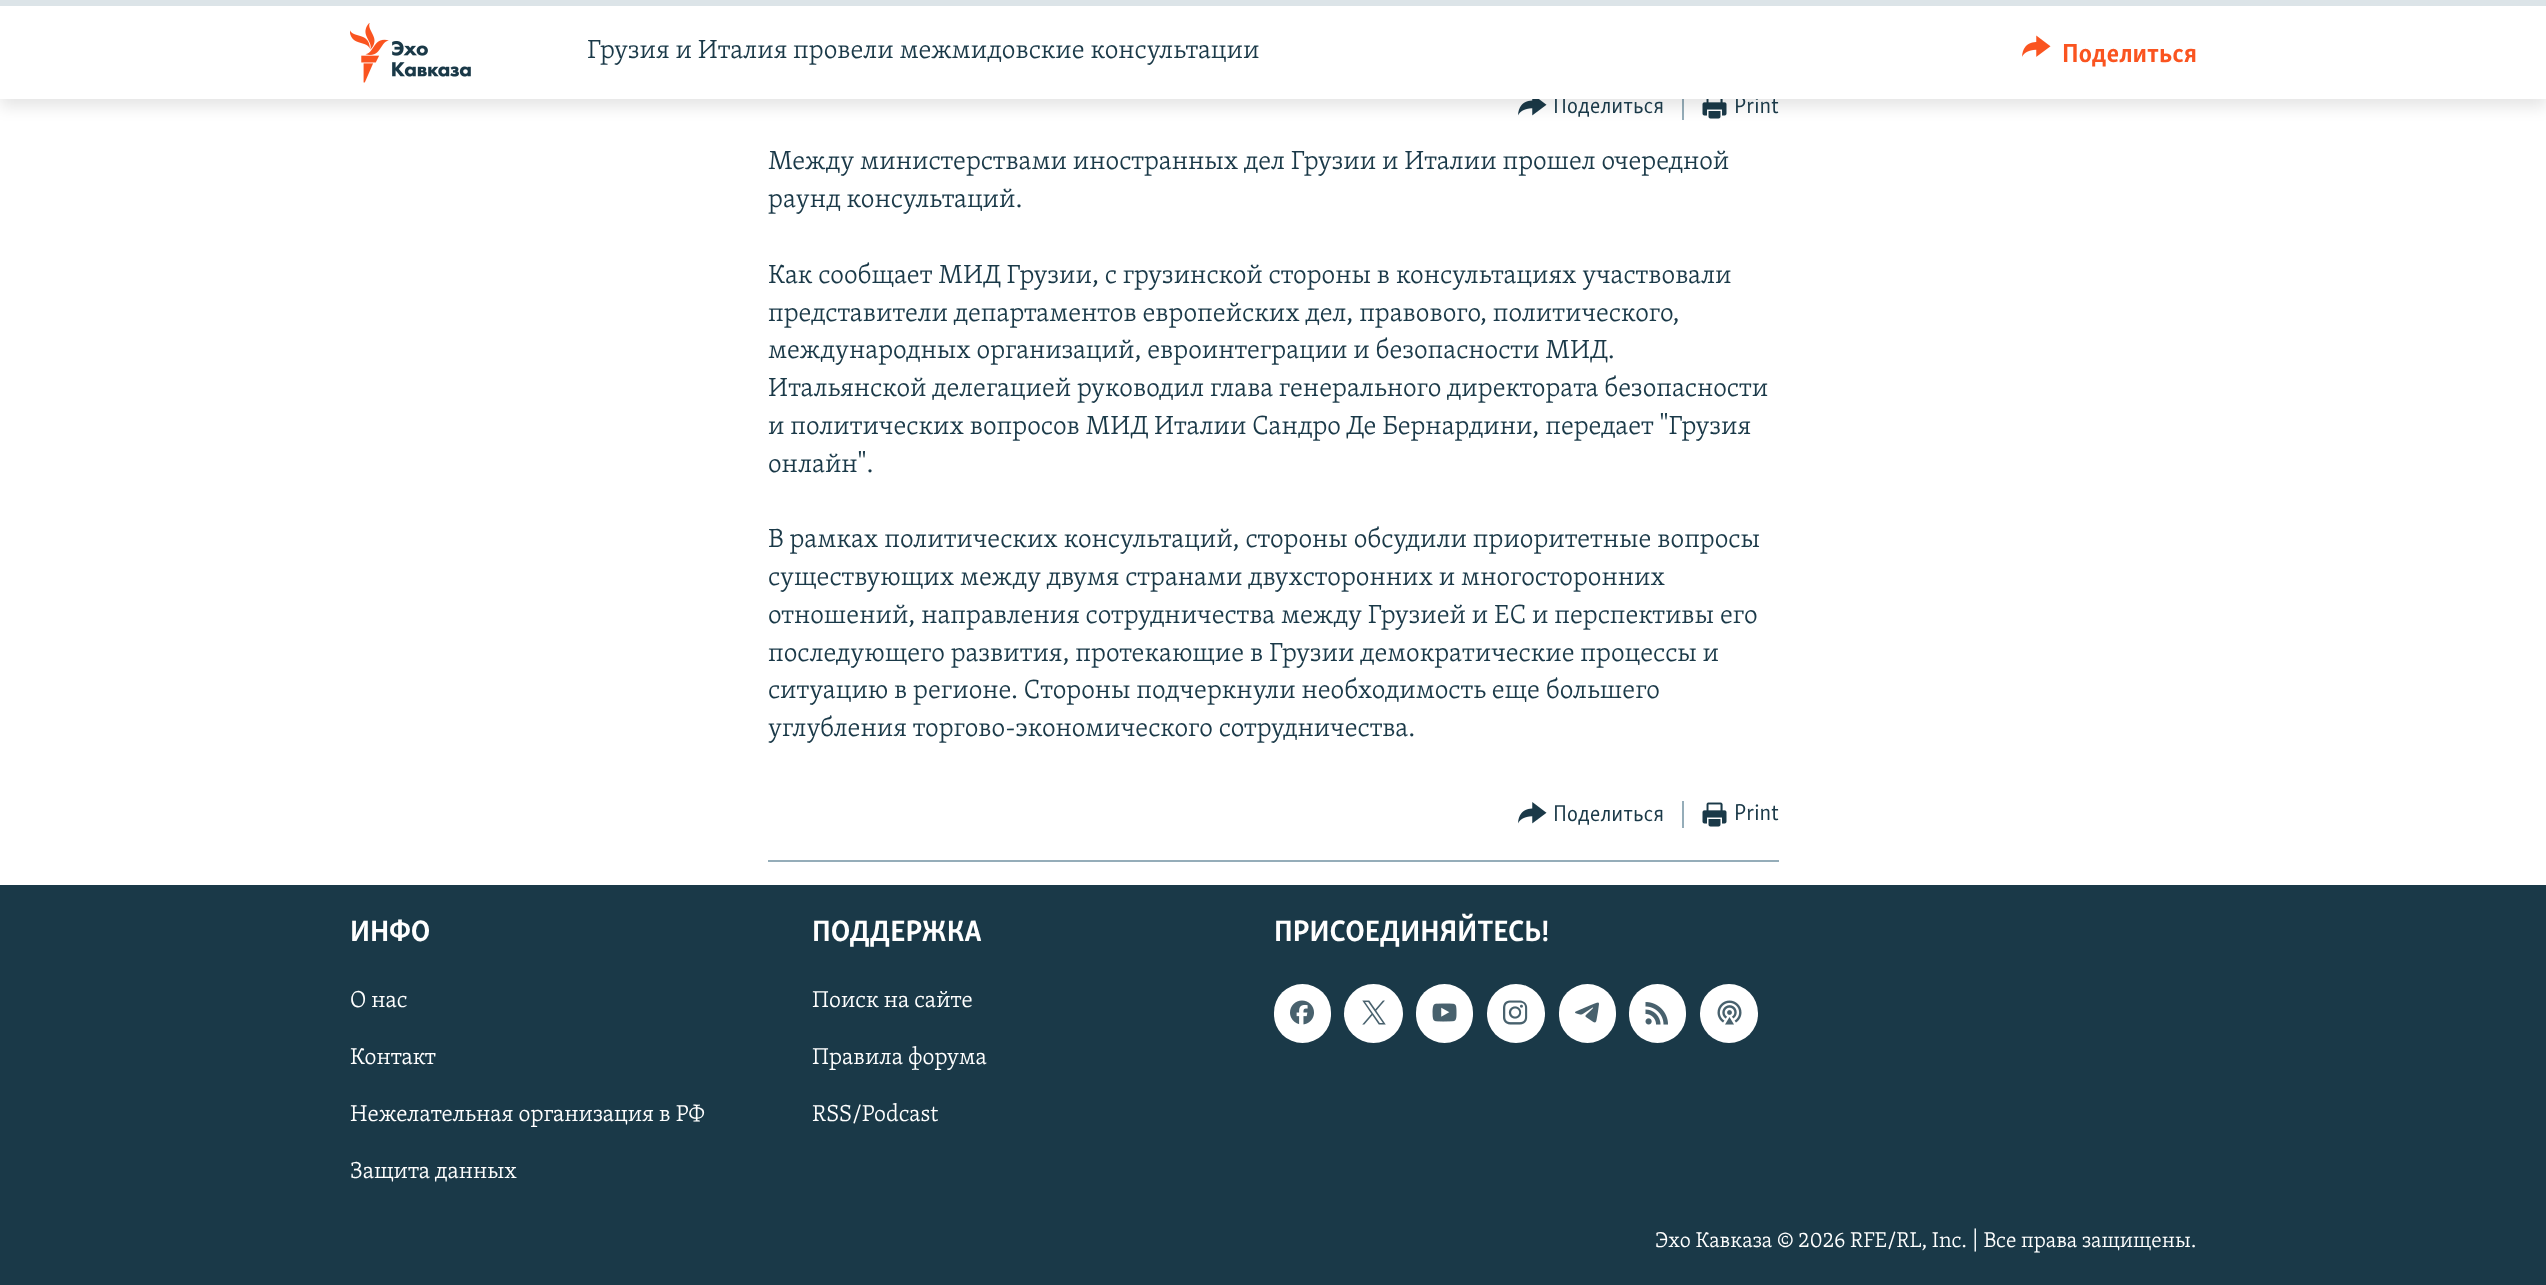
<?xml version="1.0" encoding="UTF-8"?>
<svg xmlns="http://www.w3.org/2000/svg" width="2546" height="1285">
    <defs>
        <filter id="blur1" x="-50%" y="-200%" width="200%" height="500%"><feGaussianBlur stdDeviation="7.5"/></filter>
    </defs>
    <rect width="100%" height="100%" fill="#FFFFFF"/>
    <image x="1518" y="99" width="29" height="17" href="img_03.png"/>
    <rect x="1682" y="93" width="2" height="27" fill="#95ADB9"/>
    <image x="1702" y="99" width="25" height="20" href="img_04.png"/>
    <rect x="0" y="8" width="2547" height="99" fill="#000000" fill-opacity="0.1" filter="url(#blur1)"/>
    <text x="1553" y="113" font-family="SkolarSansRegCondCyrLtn" font-size="23.6" fill="#1A3948">Поделиться</text>
    <text x="1734" y="113" font-family="SkolarSansRegCondCyrLtn" font-size="23.6" fill="#1A3948">Print</text>
    <rect x="0" y="6" width="2546" height="93" fill="#FFFFFF"/>
    <rect x="0" y="0" width="2546" height="6" fill="#DCE4E8"/>
    <image x="350" y="23" width="121" height="60" href="img_01.png"/>
    <text x="587" y="58" font-family="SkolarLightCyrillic" font-size="27" font-weight="300" fill="#1A3948">Грузия и Италия провели межмидовские консультации</text>
    <image x="2022" y="35" width="29" height="22" href="img_02.png"/>
    <text x="2062" y="62" font-family="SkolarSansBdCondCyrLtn" font-size="27" font-weight="700" fill="#FA5420">Поделиться</text>
    <text font-family="SkolarLightCyrillic" font-size="27" font-weight="300" fill="#1A3948">
        <tspan x="768" y="169">Между министерствами иностранных дел Грузии и Италии прошел очередной</tspan>
        <tspan x="768" y="207">раунд консультаций.</tspan>
    </text>
    <text font-family="SkolarLightCyrillic" font-size="27" font-weight="300" fill="#1A3948">
        <tspan x="768" y="283">Как сообщает МИД Грузии, с грузинской стороны в консультациях участвовали</tspan>
        <tspan x="768" y="321">представители департаментов европейских дел, правового, политического,</tspan>
        <tspan x="768" y="358">международных организаций, евроинтеграции и безопасности МИД.</tspan>
        <tspan x="768" y="396">Итальянской делегацией руководил глава генерального директората безопасности</tspan>
        <tspan x="768" y="434">и политических вопросов МИД Италии Сандро Де Бернардини, передает "Грузия</tspan>
        <tspan x="768" y="472">онлайн".</tspan>
    </text>
    <text font-family="SkolarLightCyrillic" font-size="27" font-weight="300" fill="#1A3948">
        <tspan x="768" y="547">В рамках политических консультаций, стороны обсудили приоритетные вопросы</tspan>
        <tspan x="768" y="585">существующих между двумя странами двухсторонних и многосторонних</tspan>
        <tspan x="768" y="623">отношений, направления сотрудничества между Грузией и ЕС и перспективы его</tspan>
        <tspan x="768" y="661">последующего развития, протекающие в Грузии демократические процессы и</tspan>
        <tspan x="768" y="698">ситуацию в регионе. Стороны подчеркнули необходимость еще большего</tspan>
        <tspan x="768" y="736">углубления торгово-экономического сотрудничества.</tspan>
    </text>
    <rect x="768" y="860" width="1011" height="2" fill="#95ADB9"/>
    <image x="1518" y="802" width="29" height="22" href="img_05.png"/>
    <text x="1553" y="821" font-family="SkolarSansRegCondCyrLtn" font-size="23.6" fill="#1A3948">Поделиться</text>
    <rect x="1682" y="801" width="2" height="27" fill="#95ADB9"/>
    <image x="1702" y="802" width="25" height="25" href="img_06.png"/>
    <text x="1734" y="820" font-family="SkolarSansRegCondCyrLtn" font-size="23.6" fill="#1A3948">Print</text>
    <rect x="0" y="885" width="2546" height="400" fill="#1A3948"/>
    <text x="350" y="941" font-family="SkolarSansBdCondCyrLtn" font-size="30.4" font-weight="700" fill="#FFFFFF">ИНФО</text>
    <text x="350" y="1007" font-family="SkolarLightCyrillic" font-size="23.6" font-weight="300" fill="#FFFFFF">О нас</text>
    <text x="350" y="1064" font-family="SkolarLightCyrillic" font-size="23.6" font-weight="300" fill="#FFFFFF">Контакт</text>
    <text x="350" y="1121" font-family="SkolarLightCyrillic" font-size="23.6" font-weight="300" fill="#FFFFFF">Нежелательная организация в РФ</text>
    <text x="350" y="1178" font-family="SkolarLightCyrillic" font-size="23.6" font-weight="300" fill="#FFFFFF">Защита данных</text>
    <text x="812" y="941" font-family="SkolarSansBdCondCyrLtn" font-size="30.4" font-weight="700" fill="#FFFFFF">ПОДДЕРЖКА</text>
    <text x="812" y="1007" font-family="SkolarLightCyrillic" font-size="23.6" font-weight="300" fill="#FFFFFF">Поиск на сайте</text>
    <text x="812" y="1064" font-family="SkolarLightCyrillic" font-size="23.6" font-weight="300" fill="#FFFFFF">Правила форума</text>
    <text x="812" y="1121" font-family="SkolarLightCyrillic" font-size="23.6" font-weight="300" fill="#FFFFFF">RSS/Podcast</text>
    <text x="1274" y="941" font-family="SkolarSansBdCondCyrLtn" font-size="30.4" font-weight="700" fill="#FFFFFF">ПРИСОЕДИНЯЙТЕСЬ!</text>
    <rect x="1274" y="984" width="57" height="59" rx="28.5" fill="#FFFFFF"/>
    <image x="1290" y="1000" width="24" height="25" href="img_07.png"/>
    <circle cx="1373.5" cy="1013.5" r="29.5" fill="#FFFFFF"/>
    <image x="1362" y="1000" width="24" height="25" href="img_08.png"/>
    <rect x="1416" y="984" width="57" height="59" rx="28.5" fill="#FFFFFF"/>
    <image x="1432" y="1003" width="25" height="19" href="img_09.png"/>
    <rect x="1487" y="984" width="58" height="59" rx="29" fill="#FFFFFF"/>
    <image x="1503" y="1000" width="25" height="25" href="img_10.png"/>
    <rect x="1559" y="984" width="57" height="59" rx="28.5" fill="#FFFFFF"/>
    <image x="1575" y="1002" width="24" height="21" href="img_11.png"/>
    <rect x="1629" y="984" width="57" height="59" rx="28.5" fill="#FFFFFF"/>
    <image x="1645" y="1002" width="23" height="23" href="img_12.png"/>
    <rect x="1700" y="984" width="58" height="59" rx="29" fill="#FFFFFF"/>
    <image x="1717" y="1000" width="25" height="25" href="img_13.png"/>
    <text x="1655" y="1247" font-family="SkolarLightCyrillic" font-size="21.9" font-weight="300" fill="#FFFFFF">Эхо Кавказа © 2026 RFE/RL, Inc. | Все права защищены.</text>
</svg>
